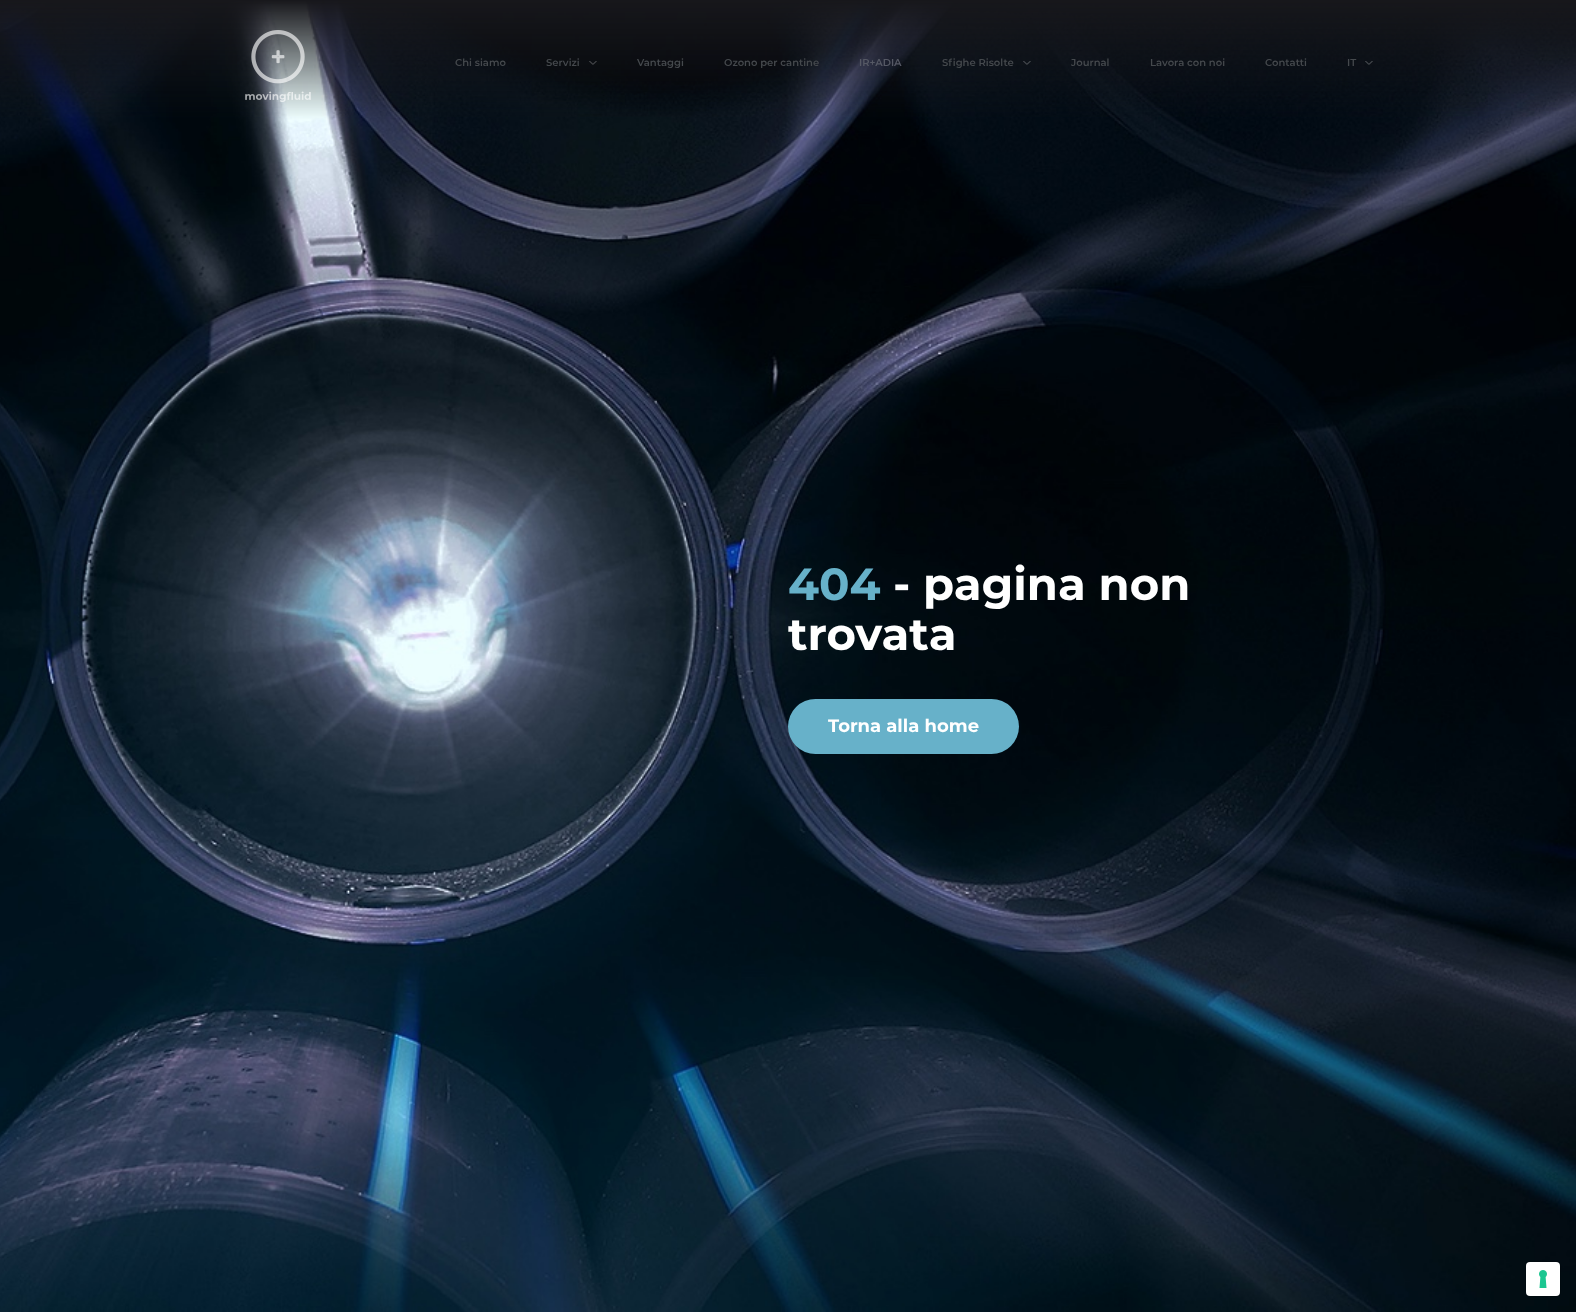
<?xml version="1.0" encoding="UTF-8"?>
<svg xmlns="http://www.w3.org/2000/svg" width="1576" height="1312">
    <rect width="100%" height="100%" fill="#FFFFFF"/>
    <image x="0" y="0" width="1576" height="1312" href="img_05.png"/>
    <image x="245" y="30" width="66" height="72" href="img_01.png"/>
    <text x="455" y="66" font-family="Montserrat" font-size="10" font-weight="600" fill="#45494D">Chi siamo</text>
    <text x="546" y="66" font-family="Montserrat" font-size="10" font-weight="600" fill="#45494D">Servizi</text>
    <image x="589" y="61" width="8" height="4" href="img_02.png"/>
    <text x="637" y="66" font-family="Montserrat" font-size="10" font-weight="600" fill="#45494D">Vantaggi</text>
    <text x="724" y="66" font-family="Montserrat" font-size="10" font-weight="600" fill="#45494D">Ozono per cantine</text>
    <text x="859" y="66" font-family="Montserrat" font-size="10" font-weight="600" fill="#565965">IR+ADIA</text>
    <text x="942" y="66" font-family="Montserrat" font-size="10" font-weight="600" fill="#45494D">Sfighe Risolte</text>
    <image x="1023" y="61" width="8" height="4" href="img_03.png"/>
    <text x="1071" y="66" font-family="Montserrat" font-size="10" font-weight="600" fill="#45494D">Journal</text>
    <text x="1150" y="66" font-family="Montserrat" font-size="10" font-weight="600" fill="#45494D">Lavora con noi</text>
    <text x="1265" y="66" font-family="Montserrat" font-size="10" font-weight="600" fill="#45494D">Contatti</text>
    <text x="1347" y="66" font-family="Montserrat" font-size="10" font-weight="600" fill="#45494D">IT</text>
    <image x="1365" y="61" width="8" height="4" href="img_04.png"/>
    <text x="788" y="600" font-family="Montserrat" font-size="45" font-weight="700" fill="#67B1C9">404</text>
    <text x="893" y="600" font-family="Montserrat" font-size="45" font-weight="700" fill="#FFFFFF">- pagina non</text>
    <text x="788" y="650" font-family="Montserrat" font-size="45" font-weight="700" fill="#FFFFFF">trovata</text>
    <rect x="788" y="699" width="231" height="55" rx="27.5" fill="#67B1C9"/>
    <text x="828" y="732" font-family="Montserrat" font-size="18" font-weight="700" fill="#FFFFFF">Torna alla home</text>
    <rect x="1525.5" y="1261.5" width="35" height="35" rx="4.5" fill="none" stroke="#000000" stroke-opacity="0.15"/>
    <rect x="1526" y="1262" width="34" height="34" rx="4" fill="#FFFFFF"/>
    <image x="1539" y="1270" width="8" height="18" href="img_06.png"/>
</svg>
